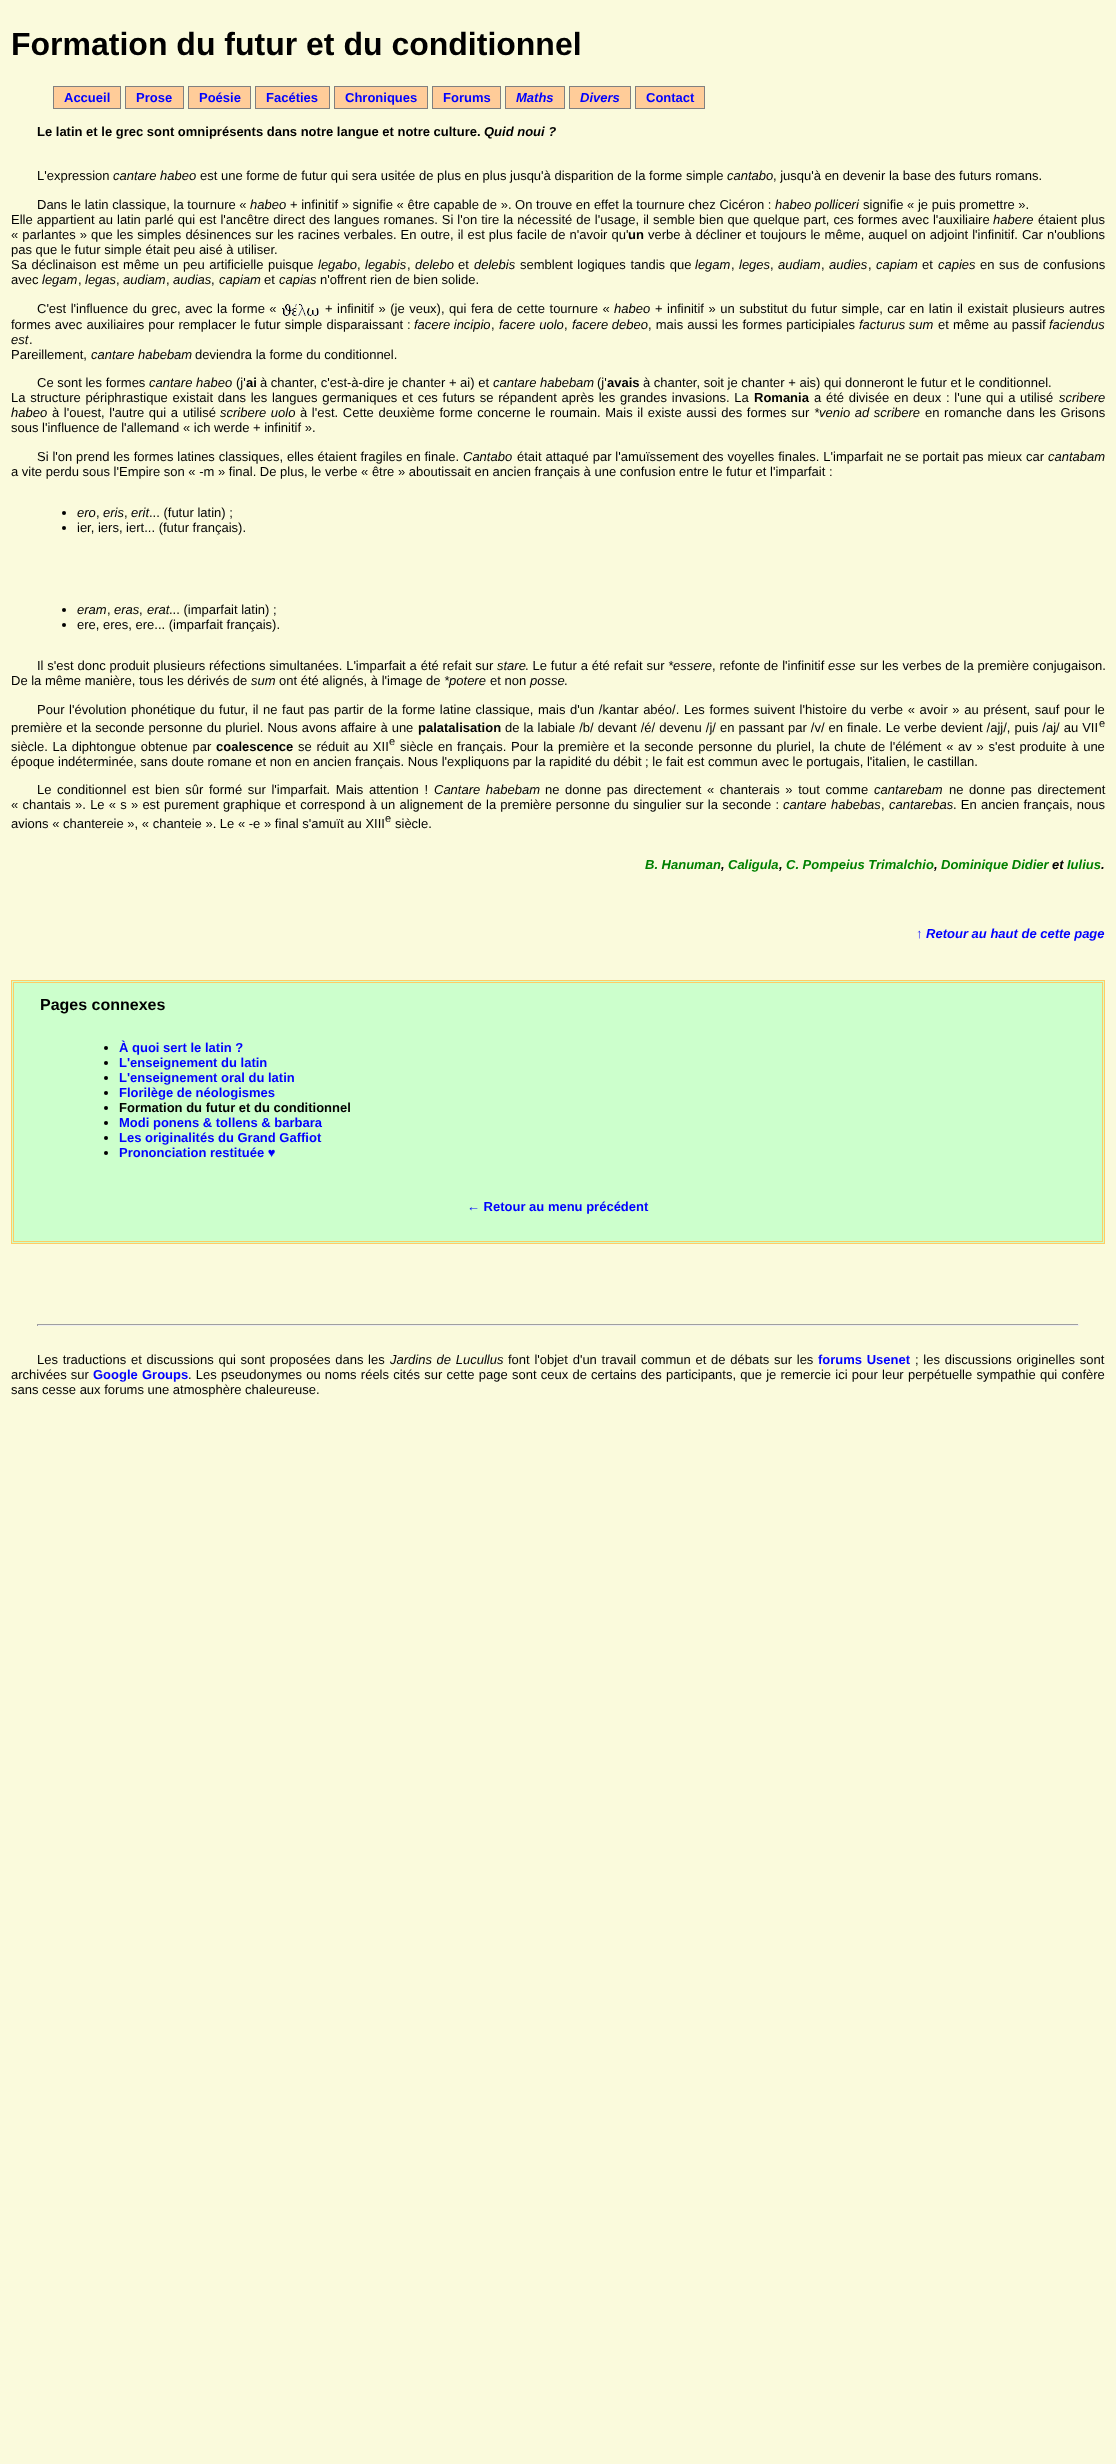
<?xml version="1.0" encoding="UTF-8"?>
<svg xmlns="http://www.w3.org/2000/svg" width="1116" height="2464">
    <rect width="100%" height="100%" fill="#FAFADC"/>
    <text x="11" y="55" font-family="Liberation Sans" font-size="32" font-weight="700" fill="#000000">Formation du futur et du conditionnel</text>
    <rect x="53.5" y="86.5" width="67" height="22" fill="#FFCC99" stroke="#808080"/>
    <text x="64" y="102" font-family="Liberation Sans" font-size="13" font-weight="700" fill="#0000FF">Accueil</text>
    <rect x="125.5" y="86.5" width="58" height="22" fill="#FFCC99" stroke="#808080"/>
    <text x="136" y="102" font-family="Liberation Sans" font-size="13" font-weight="700" fill="#0000FF">Prose</text>
    <rect x="188.5" y="86.5" width="62" height="22" fill="#FFCC99" stroke="#808080"/>
    <text x="199" y="102" font-family="Liberation Sans" font-size="13" font-weight="700" fill="#0000FF">Poésie</text>
    <rect x="255.5" y="86.5" width="74" height="22" fill="#FFCC99" stroke="#808080"/>
    <text x="266" y="102" font-family="Liberation Sans" font-size="13" font-weight="700" fill="#0000FF">Facéties</text>
    <rect x="334.5" y="86.5" width="93" height="22" fill="#FFCC99" stroke="#808080"/>
    <text x="345" y="102" font-family="Liberation Sans" font-size="13" font-weight="700" fill="#0000FF">Chroniques</text>
    <rect x="432.5" y="86.5" width="68" height="22" fill="#FFCC99" stroke="#808080"/>
    <text x="443" y="102" font-family="Liberation Sans" font-size="13" font-weight="700" fill="#0000FF">Forums</text>
    <rect x="505.5" y="86.5" width="59" height="22" fill="#FFCC99" stroke="#808080"/>
    <text x="516" y="102" font-family="Liberation Sans" font-size="13" font-weight="700" font-style="italic" fill="#0000FF">Maths</text>
    <rect x="569.5" y="86.5" width="61" height="22" fill="#FFCC99" stroke="#808080"/>
    <text x="580" y="102" font-family="Liberation Sans" font-size="13" font-weight="700" font-style="italic" fill="#0000FF">Divers</text>
    <rect x="635.5" y="86.5" width="69" height="22" fill="#FFCC99" stroke="#808080"/>
    <text x="646" y="102" font-family="Liberation Sans" font-size="13" font-weight="700" fill="#0000FF">Contact</text>
    <text x="37" y="136" font-family="Liberation Sans" font-size="13" font-weight="700" fill="#000000">Le latin et le grec sont omniprésents dans notre langue et notre culture.</text>
    <text x="484" y="136" font-family="Liberation Sans" font-size="13" font-weight="700" font-style="italic" fill="#000000">Quid noui ?</text>
    <text x="37" y="180" font-family="Liberation Sans" font-size="13" fill="#000000">L'expression</text>
    <text x="113" y="180" font-family="Liberation Sans" font-size="13" font-style="italic" fill="#000000">cantare habeo</text>
    <text x="200" y="180" font-family="Liberation Sans" font-size="13" fill="#000000">est une forme de futur qui sera usitée de plus en plus jusqu'à disparition de la forme simple</text>
    <text x="727" y="180" font-family="Liberation Sans" font-size="13" font-style="italic" fill="#000000">cantabo</text>
    <text x="773" y="180" font-family="Liberation Sans" font-size="13" fill="#000000">, jusqu'à en devenir la base des futurs romans.</text>
    <text x="37" y="209" font-family="Liberation Sans" font-size="13" fill="#000000">Dans le latin classique, la tournure «</text>
    <text x="250" y="209" font-family="Liberation Sans" font-size="13" font-style="italic" fill="#000000">habeo</text>
    <text x="290" y="209" font-family="Liberation Sans" font-size="13" fill="#000000">+ infinitif » signifie « être capable de ». On trouve en effet la tournure chez Cicéron :</text>
    <text x="775" y="209" font-family="Liberation Sans" font-size="13" font-style="italic" fill="#000000">habeo polliceri</text>
    <text x="863" y="209" font-family="Liberation Sans" font-size="13" fill="#000000">signifie « je puis promettre ».</text>
    <text x="11" y="224" word-spacing="0.4" font-family="Liberation Sans" font-size="13" fill="#000000">Elle appartient au latin parlé qui est l'ancêtre direct des langues romanes. Si l'on tire la nécessité de l'usage, il semble bien que quelque part, ces formes avec l'auxiliaire</text>
    <text x="993" y="224" font-family="Liberation Sans" font-size="13" font-style="italic" fill="#000000">habere</text>
    <text x="1038" y="224" word-spacing="0.4" font-family="Liberation Sans" font-size="13" fill="#000000">étaient plus</text>
    <text x="11" y="239" word-spacing="0.4" font-family="Liberation Sans" font-size="13" fill="#000000">« parlantes » que les simples désinences sur les racines verbales. En outre, il est plus facile de n'avoir qu'</text>
    <text x="628" y="239" font-family="Liberation Sans" font-size="13" font-weight="700" fill="#000000">un</text>
    <text x="648" y="239" word-spacing="0.4" font-family="Liberation Sans" font-size="13" fill="#000000">verbe à décliner et toujours le même, auquel on adjoint l'infinitif. Car n'oublions</text>
    <text font-family="Liberation Sans" font-size="13" fill="#000000">
        <tspan x="11" y="254">pas que le futur simple était peu aisé à utiliser.</tspan>
        <tspan x="11" y="269" word-spacing="1">Sa déclinaison est même un peu artificielle puisque</tspan>
    </text>
    <text x="318" y="269" font-family="Liberation Sans" font-size="13" font-style="italic" fill="#000000">legabo</text>
    <text x="357" y="269" font-family="Liberation Sans" font-size="13" fill="#000000">,</text>
    <text x="365" y="269" font-family="Liberation Sans" font-size="13" font-style="italic" fill="#000000">legabis</text>
    <text x="407" y="269" font-family="Liberation Sans" font-size="13" fill="#000000">,</text>
    <text x="415" y="269" font-family="Liberation Sans" font-size="13" font-style="italic" fill="#000000">delebo</text>
    <text x="458" y="269" font-family="Liberation Sans" font-size="13" fill="#000000">et</text>
    <text x="474" y="269" font-family="Liberation Sans" font-size="13" font-style="italic" fill="#000000">delebis</text>
    <text x="520" y="269" word-spacing="1" font-family="Liberation Sans" font-size="13" fill="#000000">semblent logiques tandis que</text>
    <text x="695" y="269" font-family="Liberation Sans" font-size="13" font-style="italic" fill="#000000">legam</text>
    <text x="731" y="269" font-family="Liberation Sans" font-size="13" fill="#000000">,</text>
    <text x="739" y="269" font-family="Liberation Sans" font-size="13" font-style="italic" fill="#000000">leges</text>
    <text x="770" y="269" font-family="Liberation Sans" font-size="13" fill="#000000">,</text>
    <text x="778" y="269" font-family="Liberation Sans" font-size="13" font-style="italic" fill="#000000">audiam</text>
    <text x="821" y="269" font-family="Liberation Sans" font-size="13" fill="#000000">,</text>
    <text x="829" y="269" font-family="Liberation Sans" font-size="13" font-style="italic" fill="#000000">audies</text>
    <text x="868" y="269" font-family="Liberation Sans" font-size="13" fill="#000000">,</text>
    <text x="876" y="269" font-family="Liberation Sans" font-size="13" font-style="italic" fill="#000000">capiam</text>
    <text x="922" y="269" font-family="Liberation Sans" font-size="13" fill="#000000">et</text>
    <text x="938" y="269" font-family="Liberation Sans" font-size="13" font-style="italic" fill="#000000">capies</text>
    <text x="980" y="269" word-spacing="1" font-family="Liberation Sans" font-size="13" fill="#000000">en sus de confusions</text>
    <text x="11" y="284" font-family="Liberation Sans" font-size="13" fill="#000000">avec</text>
    <text x="42" y="284" font-family="Liberation Sans" font-size="13" font-style="italic" fill="#000000">legam</text>
    <text x="78" y="284" font-family="Liberation Sans" font-size="13" fill="#000000">,</text>
    <text x="85" y="284" font-family="Liberation Sans" font-size="13" font-style="italic" fill="#000000">legas</text>
    <text x="116" y="284" font-family="Liberation Sans" font-size="13" fill="#000000">,</text>
    <text x="123" y="284" font-family="Liberation Sans" font-size="13" font-style="italic" fill="#000000">audiam</text>
    <text x="166" y="284" font-family="Liberation Sans" font-size="13" fill="#000000">,</text>
    <text x="173" y="284" font-family="Liberation Sans" font-size="13" font-style="italic" fill="#000000">audias</text>
    <text x="211" y="284" font-family="Liberation Sans" font-size="13" fill="#000000">,</text>
    <text x="219" y="284" font-family="Liberation Sans" font-size="13" font-style="italic" fill="#000000">capiam</text>
    <text x="264" y="284" font-family="Liberation Sans" font-size="13" fill="#000000">et</text>
    <text x="279" y="284" font-family="Liberation Sans" font-size="13" font-style="italic" fill="#000000">capias</text>
    <text x="320" y="284" font-family="Liberation Sans" font-size="13" fill="#000000">n'offrent rien de bien solide.</text>
    <text x="37" y="313" word-spacing="0.9" font-family="Liberation Sans" font-size="13" fill="#000000">C'est l'influence du grec, avec la forme «</text>
    <image x="282" y="304" width="37" height="12" href="img_01.png"/>
    <text x="325" y="313" word-spacing="0.9" font-family="Liberation Sans" font-size="13" fill="#000000">+ infinitif » (je veux), qui fera de cette tournure «</text>
    <text x="614" y="313" font-family="Liberation Sans" font-size="13" font-style="italic" fill="#000000">habeo</text>
    <text x="655" y="313" word-spacing="0.9" font-family="Liberation Sans" font-size="13" fill="#000000">+ infinitif » un substitut du futur simple, car en latin il existait plusieurs autres</text>
    <text x="11" y="329" word-spacing="0.5" font-family="Liberation Sans" font-size="13" fill="#000000">formes avec auxiliaires pour remplacer le futur simple disparaissant :</text>
    <text x="414" y="329" font-family="Liberation Sans" font-size="13" font-style="italic" fill="#000000">facere incipio</text>
    <text x="491" y="329" font-family="Liberation Sans" font-size="13" fill="#000000">,</text>
    <text x="499" y="329" word-spacing="0.5" font-family="Liberation Sans" font-size="13" font-style="italic" fill="#000000">facere uolo</text>
    <text x="564" y="329" font-family="Liberation Sans" font-size="13" fill="#000000">,</text>
    <text x="572" y="329" font-family="Liberation Sans" font-size="13" font-style="italic" fill="#000000">facere debeo</text>
    <text x="648" y="329" word-spacing="0.5" font-family="Liberation Sans" font-size="13" fill="#000000">, mais aussi les formes participiales</text>
    <text x="859" y="329" font-family="Liberation Sans" font-size="13" font-style="italic" fill="#000000">facturus sum</text>
    <text x="938" y="329" word-spacing="0.5" font-family="Liberation Sans" font-size="13" fill="#000000">et même au passif</text>
    <text x="1049" y="329" font-family="Liberation Sans" font-size="13" font-style="italic" fill="#000000">faciendus</text>
    <text x="11" y="344" font-family="Liberation Sans" font-size="13" font-style="italic" fill="#000000">est</text>
    <text x="29" y="344" font-family="Liberation Sans" font-size="13" fill="#000000">.</text>
    <text x="11" y="359" font-family="Liberation Sans" font-size="13" fill="#000000">Pareillement,</text>
    <text x="91" y="359" font-family="Liberation Sans" font-size="13" font-style="italic" fill="#000000">cantare habebam</text>
    <text x="195" y="359" font-family="Liberation Sans" font-size="13" fill="#000000">deviendra la forme du conditionnel.</text>
    <text x="37" y="387" font-family="Liberation Sans" font-size="13" fill="#000000">Ce sont les formes</text>
    <text x="149" y="387" font-family="Liberation Sans" font-size="13" font-style="italic" fill="#000000">cantare habeo</text>
    <text x="236" y="387" font-family="Liberation Sans" font-size="13" fill="#000000">(j'</text>
    <text x="246" y="387" font-family="Liberation Sans" font-size="13" font-weight="700" fill="#000000">ai</text>
    <text x="260" y="387" font-family="Liberation Sans" font-size="13" fill="#000000">à chanter, c'est-à-dire je chanter + ai) et</text>
    <text x="493" y="387" font-family="Liberation Sans" font-size="13" font-style="italic" fill="#000000">cantare habebam</text>
    <text x="597" y="387" font-family="Liberation Sans" font-size="13" fill="#000000">(j'</text>
    <text x="607" y="387" font-family="Liberation Sans" font-size="13" font-weight="700" fill="#000000">avais</text>
    <text x="643" y="387" font-family="Liberation Sans" font-size="13" fill="#000000">à chanter, soit je chanter + ais) qui donneront le futur et le conditionnel.</text>
    <text x="11" y="402" word-spacing="1.1" font-family="Liberation Sans" font-size="13" fill="#000000">La structure périphrastique existait dans les langues germaniques et ces futurs se répandent après les grandes invasions. La</text>
    <text x="754" y="402" font-family="Liberation Sans" font-size="13" font-weight="700" fill="#000000">Romania</text>
    <text x="814" y="402" word-spacing="1.1" font-family="Liberation Sans" font-size="13" fill="#000000">a été divisée en deux : l'une qui a utilisé</text>
    <text x="1059" y="402" font-family="Liberation Sans" font-size="13" font-style="italic" fill="#000000">scribere</text>
    <text x="11" y="417" font-family="Liberation Sans" font-size="13" font-style="italic" fill="#000000">habeo</text>
    <text x="52" y="417" word-spacing="1" font-family="Liberation Sans" font-size="13" fill="#000000">à l'ouest, l'autre qui a utilisé</text>
    <text x="220" y="417" word-spacing="1" font-family="Liberation Sans" font-size="13" font-style="italic" fill="#000000">scribere uolo</text>
    <text x="300" y="417" word-spacing="1" font-family="Liberation Sans" font-size="13" fill="#000000">à l'est. Cette deuxième forme concerne le roumain. Mais il existe aussi des formes sur</text>
    <text x="814" y="417" word-spacing="1" font-family="Liberation Sans" font-size="13" font-style="italic" fill="#000000">*venio ad scribere</text>
    <text x="925" y="417" word-spacing="1" font-family="Liberation Sans" font-size="13" fill="#000000">en romanche dans les Grisons</text>
    <text x="11" y="432" font-family="Liberation Sans" font-size="13" fill="#000000">sous l'influence de l'allemand « ich werde + infinitif ».</text>
    <text x="37" y="461" word-spacing="0.25" font-family="Liberation Sans" font-size="13" fill="#000000">Si l'on prend les formes latines classiques, elles étaient fragiles en finale.</text>
    <text x="463" y="461" font-family="Liberation Sans" font-size="13" font-style="italic" fill="#000000">Cantabo</text>
    <text x="517" y="461" word-spacing="0.25" font-family="Liberation Sans" font-size="13" fill="#000000">était attaqué par l'amuïssement des voyelles finales. L'imparfait ne se portait pas mieux car</text>
    <text x="1048" y="461" font-family="Liberation Sans" font-size="13" font-style="italic" fill="#000000">cantabam</text>
    <text x="11" y="476" font-family="Liberation Sans" font-size="13" fill="#000000">a vite perdu sous l'Empire son « -m » final. De plus, le verbe « être » aboutissait en ancien français à une confusion entre le futur et l'imparfait :</text>
    <circle cx="64" cy="513" r="2" fill="#000000"/>
    <text x="77" y="517" font-family="Liberation Sans" font-size="13" font-style="italic" fill="#000000">ero</text>
    <text x="103" y="517" font-family="Liberation Sans" font-size="13" font-style="italic" fill="#000000">eris</text>
    <text x="131" y="517" font-family="Liberation Sans" font-size="13" font-style="italic" fill="#000000">erit</text>
    <text x="149" y="517" font-family="Liberation Sans" font-size="13" fill="#000000">... (futur latin) ;</text>
    <text x="96" y="517" font-family="Liberation Sans" font-size="13" fill="#000000">,</text>
    <text x="124" y="517" font-family="Liberation Sans" font-size="13" fill="#000000">,</text>
    <circle cx="64" cy="528" r="2" fill="#000000"/>
    <text x="77" y="532" font-family="Liberation Sans" font-size="13" fill="#000000">ier, iers, iert... (futur français).</text>
    <circle cx="64" cy="610" r="2" fill="#000000"/>
    <text x="77" y="614" font-family="Liberation Sans" font-size="13" font-style="italic" fill="#000000">eram</text>
    <text x="114" y="614" font-family="Liberation Sans" font-size="13" font-style="italic" fill="#000000">eras</text>
    <text x="147" y="614" font-family="Liberation Sans" font-size="13" font-style="italic" fill="#000000">erat</text>
    <text x="169" y="614" font-family="Liberation Sans" font-size="13" fill="#000000">... (imparfait latin) ;</text>
    <text x="107" y="614" font-family="Liberation Sans" font-size="13" fill="#000000">,</text>
    <text x="139" y="614" font-family="Liberation Sans" font-size="13" fill="#000000">,</text>
    <circle cx="64" cy="625" r="2" fill="#000000"/>
    <text x="77" y="629" font-family="Liberation Sans" font-size="13" fill="#000000">ere, eres, ere... (imparfait français).</text>
    <text x="37" y="670" word-spacing="0.25" font-family="Liberation Sans" font-size="13" fill="#000000">Il s'est donc produit plusieurs réfections simultanées. L'imparfait a été refait sur</text>
    <text x="497" y="670" font-family="Liberation Sans" font-size="13" font-style="italic" fill="#000000">stare</text>
    <text x="525" y="670" word-spacing="0.25" font-family="Liberation Sans" font-size="13" fill="#000000">. Le futur a été refait sur</text>
    <text x="668" y="670" font-family="Liberation Sans" font-size="13" font-style="italic" fill="#000000">*essere</text>
    <text x="712" y="670" word-spacing="0.25" font-family="Liberation Sans" font-size="13" fill="#000000">, refonte de l'infinitif</text>
    <text x="828" y="670" font-family="Liberation Sans" font-size="13" font-style="italic" fill="#000000">esse</text>
    <text x="860" y="670" word-spacing="0.25" font-family="Liberation Sans" font-size="13" fill="#000000">sur les verbes de la première conjugaison.</text>
    <text x="11" y="685" font-family="Liberation Sans" font-size="13" fill="#000000">De la même manière, tous les dérivés de</text>
    <text x="251" y="685" font-family="Liberation Sans" font-size="13" font-style="italic" fill="#000000">sum</text>
    <text x="279" y="685" font-family="Liberation Sans" font-size="13" fill="#000000">ont été alignés, à l'image de</text>
    <text x="444" y="685" font-family="Liberation Sans" font-size="13" font-style="italic" fill="#000000">*potere</text>
    <text x="490" y="685" font-family="Liberation Sans" font-size="13" fill="#000000">et non</text>
    <text x="530" y="685" font-family="Liberation Sans" font-size="13" font-style="italic" fill="#000000">posse</text>
    <text x="564" y="685" font-family="Liberation Sans" font-size="13" fill="#000000">.</text>
    <text x="37" y="714" word-spacing="1" font-family="Liberation Sans" font-size="13" fill="#000000">Pour l'évolution phonétique du futur, il ne faut pas partir de la forme latine classique, mais d'un /kantar abéo/. Les formes suivent l'histoire du verbe « avoir » au présent, sauf pour le</text>
    <text x="11" y="732" word-spacing="0.4" font-family="Liberation Sans" font-size="13" fill="#000000">première et la seconde personne du pluriel. Nous avons affaire à une</text>
    <text x="418" y="732" font-family="Liberation Sans" font-size="13" font-weight="700" fill="#000000">palatalisation</text>
    <text x="505" y="732" word-spacing="0.4" font-family="Liberation Sans" font-size="13" fill="#000000">de la labiale /b/ devant /é/ devenu /j/ en passant par /v/ en finale. Le verbe devient /ajj/, puis /aj/ au VII</text>
    <text x="1099" y="727" font-family="Liberation Sans" font-size="11" fill="#000000">e</text>
    <text x="11" y="751" word-spacing="1.1" font-family="Liberation Sans" font-size="13" fill="#000000">siècle. La diphtongue obtenue par</text>
    <text x="216" y="751" font-family="Liberation Sans" font-size="13" font-weight="700" fill="#000000">coalescence</text>
    <text x="298" y="751" word-spacing="1.1" font-family="Liberation Sans" font-size="13" fill="#000000">se réduit au XII</text>
    <text x="389" y="745" font-family="Liberation Sans" font-size="11" fill="#000000">e</text>
    <text x="400" y="751" word-spacing="1.1" font-family="Liberation Sans" font-size="13" fill="#000000">siècle en français. Pour la première et la seconde personne du pluriel, la chute de l'élément « av » s'est produite à une</text>
    <text x="11" y="766" font-family="Liberation Sans" font-size="13" fill="#000000">époque indéterminée, sans doute romane et non en ancien français. Nous l'expliquons par la rapidité du débit ; le fait est commun avec le portugais, l'italien, le castillan.</text>
    <text x="37" y="794" word-spacing="2" font-family="Liberation Sans" font-size="13" fill="#000000">Le conditionnel est bien sûr formé sur l'imparfait. Mais attention !</text>
    <text x="434" y="794" word-spacing="2" font-family="Liberation Sans" font-size="13" font-style="italic" fill="#000000">Cantare habebam</text>
    <text x="545" y="794" word-spacing="2" font-family="Liberation Sans" font-size="13" fill="#000000">ne donne pas directement « chanterais » tout comme</text>
    <text x="874" y="794" font-family="Liberation Sans" font-size="13" font-style="italic" fill="#000000">cantarebam</text>
    <text x="949" y="794" word-spacing="2" font-family="Liberation Sans" font-size="13" fill="#000000">ne donne pas directement</text>
    <text x="11" y="809" word-spacing="0.6" font-family="Liberation Sans" font-size="13" fill="#000000">« chantais ». Le « s » est purement graphique et correspond à un alignement de la première personne du singulier sur la seconde :</text>
    <text x="783" y="809" word-spacing="1" font-family="Liberation Sans" font-size="13" font-style="italic" fill="#000000">cantare habebas</text>
    <text x="881" y="809" font-family="Liberation Sans" font-size="13" fill="#000000">,</text>
    <text x="889" y="809" font-family="Liberation Sans" font-size="13" font-style="italic" fill="#000000">cantarebas</text>
    <text x="953" y="809" word-spacing="0.6" font-family="Liberation Sans" font-size="13" fill="#000000">. En ancien français, nous</text>
    <text x="11" y="828" font-family="Liberation Sans" font-size="13" fill="#000000">avions « chantereie », « chanteie ». Le « -e » final s'amuït au XIII</text>
    <text x="385" y="822" font-family="Liberation Sans" font-size="11" fill="#000000">e</text>
    <text x="395" y="828" font-family="Liberation Sans" font-size="13" fill="#000000">siècle.</text>
    <text x="645" y="869" font-family="Liberation Sans" font-size="13" font-weight="700" font-style="italic" fill="#008000">B. Hanuman</text>
    <text x="721" y="869" font-family="Liberation Sans" font-size="13" font-weight="700" font-style="italic" fill="#000000">,</text>
    <text x="728" y="869" font-family="Liberation Sans" font-size="13" font-weight="700" font-style="italic" fill="#008000">Caligula</text>
    <text x="779" y="869" font-family="Liberation Sans" font-size="13" font-weight="700" font-style="italic" fill="#000000">,</text>
    <text x="786" y="869" font-family="Liberation Sans" font-size="13" font-weight="700" font-style="italic" fill="#008000">C. Pompeius Trimalchio</text>
    <text x="934" y="869" font-family="Liberation Sans" font-size="13" font-weight="700" font-style="italic" fill="#000000">,</text>
    <text x="941" y="869" font-family="Liberation Sans" font-size="13" font-weight="700" font-style="italic" fill="#008000">Dominique Didier</text>
    <text x="1052" y="869" font-family="Liberation Sans" font-size="13" font-weight="700" font-style="italic" fill="#000000">et</text>
    <text x="1067" y="869" font-family="Liberation Sans" font-size="13" font-weight="700" font-style="italic" fill="#008000">Iulius</text>
    <text x="1101" y="869" font-family="Liberation Sans" font-size="13" font-weight="700" font-style="italic" fill="#000000">.</text>
    <text x="916" y="938" font-family="Liberation Sans" font-size="13" font-weight="700" font-style="italic" fill="#0000FF">↑ Retour au haut de cette page</text>
    <rect x="11.5" y="980.5" width="1093" height="263" fill="#CCFFCC" stroke="#FFCC66"/>
    <rect x="13.5" y="982.5" width="1089" height="259" fill="none" stroke="#FFCC66"/>
    <text x="40" y="1010" font-family="Liberation Sans" font-size="16" font-weight="700" fill="#000000">Pages connexes</text>
    <circle cx="106" cy="1048" r="2" fill="#000000"/>
    <text x="119" y="1052" font-family="Liberation Sans" font-size="13" font-weight="700" fill="#0000FF">À quoi sert le latin ?</text>
    <circle cx="106" cy="1063" r="2" fill="#000000"/>
    <text x="119" y="1067" font-family="Liberation Sans" font-size="13" font-weight="700" fill="#0000FF">L'enseignement du latin</text>
    <circle cx="106" cy="1078" r="2" fill="#000000"/>
    <text x="119" y="1082" font-family="Liberation Sans" font-size="13" font-weight="700" fill="#0000FF">L'enseignement oral du latin</text>
    <circle cx="106" cy="1093" r="2" fill="#000000"/>
    <text x="119" y="1097" font-family="Liberation Sans" font-size="13" font-weight="700" fill="#0000FF">Florilège de néologismes</text>
    <circle cx="106" cy="1108" r="2" fill="#000000"/>
    <text x="119" y="1112" font-family="Liberation Sans" font-size="13" font-weight="700" fill="#000000">Formation du futur et du conditionnel</text>
    <circle cx="106" cy="1123" r="2" fill="#000000"/>
    <text x="119" y="1127" font-family="Liberation Sans" font-size="13" font-weight="700" fill="#0000FF">Modi ponens &amp; tollens &amp; barbara</text>
    <circle cx="106" cy="1138" r="2" fill="#000000"/>
    <text x="119" y="1142" font-family="Liberation Sans" font-size="13" font-weight="700" fill="#0000FF">Les originalités du Grand Gaffiot</text>
    <circle cx="106" cy="1153" r="2" fill="#000000"/>
    <text x="119" y="1157" font-family="Liberation Sans" font-size="13" font-weight="700" fill="#0000FF">Prononciation restituée ♥</text>
    <text x="467" y="1211" font-family="Liberation Sans" font-size="13" font-weight="700" fill="#0000FF">← Retour au menu précédent</text>
    <rect x="37" y="1324" width="1042" height="1" fill="#9F9F9F"/>
    <rect x="1078" y="1324" width="1" height="2" fill="#EEEEEE"/>
    <rect x="37" y="1325" width="1042" height="1" fill="#EEEEEE"/>
    <rect x="37" y="1324" width="1" height="2" fill="#9F9F9F"/>
    <text x="37" y="1364" word-spacing="1.1" font-family="Liberation Sans" font-size="13" fill="#000000">Les traductions et discussions qui sont proposées dans les</text>
    <text x="390" y="1364" word-spacing="1.1" font-family="Liberation Sans" font-size="13" font-style="italic" fill="#000000">Jardins de Lucullus</text>
    <text x="508" y="1364" word-spacing="1.1" font-family="Liberation Sans" font-size="13" fill="#000000">font l'objet d'un travail commun et de débats sur les</text>
    <text x="818" y="1364" word-spacing="1" font-family="Liberation Sans" font-size="13" font-weight="700" fill="#0000FF">forums Usenet</text>
    <text x="915" y="1364" word-spacing="1.1" font-family="Liberation Sans" font-size="13" fill="#000000">; les discussions originelles sont</text>
    <text x="11" y="1379" word-spacing="0.6" font-family="Liberation Sans" font-size="13" fill="#000000">archivées sur</text>
    <text x="93" y="1379" word-spacing="0.6" font-family="Liberation Sans" font-size="13" font-weight="700" fill="#0000FF">Google Groups</text>
    <text x="188" y="1379" word-spacing="0.6" font-family="Liberation Sans" font-size="13" fill="#000000">. Les pseudonymes ou noms réels cités sur cette page sont ceux de certains des participants, que je remercie ici pour leur perpétuelle sympathie qui confère</text>
    <text x="11" y="1394" font-family="Liberation Sans" font-size="13" fill="#000000">sans cesse aux forums une atmosphère chaleureuse.</text>
</svg>
